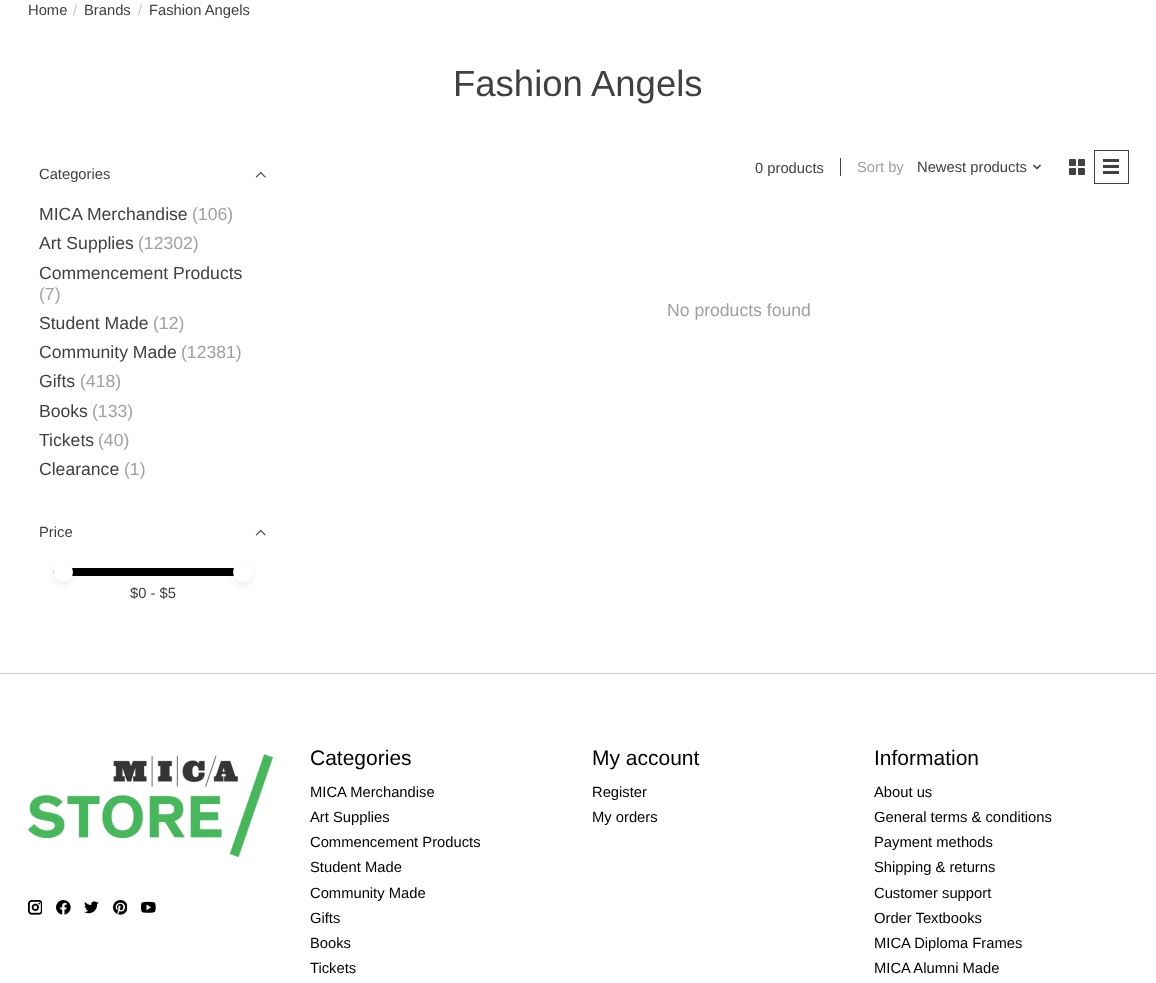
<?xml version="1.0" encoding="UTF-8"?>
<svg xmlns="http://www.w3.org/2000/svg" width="1156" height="983">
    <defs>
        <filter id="blur1" x="-50%" y="-200%" width="200%" height="500%"><feGaussianBlur stdDeviation="3"/></filter>
    </defs>
    <rect width="100%" height="100%" fill="#FFFFFF"/>
    <text x="28" y="15" font-family="Arimo" font-size="14.75" fill="#414141">Home</text>
    <text x="73" y="15" font-family="Arimo" font-size="14.75" fill="#C6C6C6">/</text>
    <text x="84" y="15" font-family="Arimo" font-size="14.75" fill="#414141">Brands</text>
    <text x="138" y="15" font-family="Arimo" font-size="14.75" fill="#C6C6C6">/</text>
    <text x="149" y="15" font-family="Arimo" font-size="14.75" fill="#414141">Fashion Angels</text>
    <text x="453" y="96" font-family="Arimo" font-size="36.5" fill="#414141">Fashion Angels</text>
    <text x="39" y="179" font-family="Arimo" font-size="14.75" fill="#414141">Categories</text>
    <image x="255" y="171" width="11" height="7" href="img_01.png"/>
    <text x="39" y="220" font-family="Arimo" font-size="17.6" fill="#414141">MICA Merchandise</text>
    <text x="192" y="220" font-family="Arimo" font-size="17.6" fill="#A0A0A0">(106)</text>
    <text x="39" y="249" font-family="Arimo" font-size="17.6" fill="#414141">Art Supplies</text>
    <text x="138" y="249" font-family="Arimo" font-size="17.6" fill="#A0A0A0">(12302)</text>
    <text x="39" y="279" font-family="Arimo" font-size="17.6" fill="#414141">Commencement Products</text>
    <text x="39" y="300" font-family="Arimo" font-size="17.6" fill="#A0A0A0">(7)</text>
    <text x="39" y="329" font-family="Arimo" font-size="17.6" fill="#414141">Student Made</text>
    <text x="153" y="329" font-family="Arimo" font-size="17.6" fill="#A0A0A0">(12)</text>
    <text x="39" y="358" font-family="Arimo" font-size="17.6" fill="#414141">Community Made</text>
    <text x="181" y="358" font-family="Arimo" font-size="17.6" fill="#A0A0A0">(12381)</text>
    <text x="39" y="387" font-family="Arimo" font-size="17.6" fill="#414141">Gifts</text>
    <text x="80" y="387" font-family="Arimo" font-size="17.6" fill="#A0A0A0">(418)</text>
    <text x="39" y="417" font-family="Arimo" font-size="17.6" fill="#414141">Books</text>
    <text x="92" y="417" font-family="Arimo" font-size="17.6" fill="#A0A0A0">(133)</text>
    <text x="39" y="446" font-family="Arimo" font-size="17.6" fill="#414141">Tickets</text>
    <text x="98" y="446" font-family="Arimo" font-size="17.6" fill="#A0A0A0">(40)</text>
    <text x="39" y="475" font-family="Arimo" font-size="17.6" fill="#414141">Clearance</text>
    <text x="124" y="475" font-family="Arimo" font-size="17.6" fill="#A0A0A0">(1)</text>
    <text x="39" y="537" font-family="Arimo" font-size="14.75" fill="#414141">Price</text>
    <image x="255" y="529" width="11" height="7" href="img_01.png"/>
    <path d="M 57 568 H 243 V 576 H 57 C 55 576 53 574 53 572 C 53 570 55 568 57 568 Z" fill="#000000"/>
    <rect x="53" y="565" width="20" height="20" rx="10" fill="#000000" fill-opacity="0.08" filter="url(#blur1)"/>
    <circle cx="63" cy="572" r="10" fill="#FFFFFF"/>
    <text x="130" y="598" font-family="Arimo" font-size="14.75" fill="#414141">$0 - $5</text>
    <rect x="233" y="565" width="20" height="20" rx="10" fill="#000000" fill-opacity="0.08" filter="url(#blur1)"/>
    <circle cx="243" cy="572" r="10" fill="#FFFFFF"/>
    <text x="755" y="173" font-family="Arimo" font-size="14.75" fill="#414141">0 products</text>
    <rect x="840" y="158" width="1" height="18" fill="#414141"/>
    <text x="857" y="172" font-family="Arimo" font-size="14.75" fill="#A0A0A0">Sort by</text>
    <text x="917" y="172" font-family="Arimo" font-size="14.75" fill="#414141">Newest products</text>
    <image x="1033" y="164" width="8" height="6" href="img_02.png"/>
    <image x="1069" y="159" width="16" height="16" href="img_03.png"/>
    <rect x="1094.5" y="150.5" width="34" height="33" fill="none" stroke="#414141"/>
    <rect x="1103" y="159" width="16" height="3" fill="#414141"/>
    <rect x="1103" y="165" width="16" height="3" fill="#414141"/>
    <rect x="1103" y="171" width="16" height="3" fill="#414141"/>
    <text x="667" y="316" font-family="Arimo" font-size="17.6" fill="#A0A0A0">No products found</text>
    <rect x="0" y="673" width="1156" height="1" fill="#CCCCCC"/>
    <image x="28" y="754" width="245" height="104" href="img_04.png"/>
    <image x="28" y="900" width="14" height="15" href="img_05.png"/>
    <image x="56" y="900" width="15" height="15" href="img_06.png"/>
    <image x="84" y="901" width="15" height="13" href="img_07.png"/>
    <image x="113" y="900" width="14" height="15" href="img_08.png"/>
    <image x="141" y="901" width="15" height="12" href="img_09.png"/>
    <text x="310" y="765" font-family="Arimo" font-size="21" fill="#000000">Categories</text>
    <text font-family="Arimo" font-size="14.75" fill="#000000">
        <tspan x="310" y="797">MICA Merchandise</tspan>
        <tspan x="310" y="822">Art Supplies</tspan>
        <tspan x="310" y="847">Commencement Products</tspan>
        <tspan x="310" y="872">Student Made</tspan>
        <tspan x="310" y="898">Community Made</tspan>
        <tspan x="310" y="923">Gifts</tspan>
        <tspan x="310" y="948">Books</tspan>
        <tspan x="310" y="973">Tickets</tspan>
    </text>
    <text x="592" y="765" font-family="Arimo" font-size="21" fill="#000000">My account</text>
    <text font-family="Arimo" font-size="14.75" fill="#000000">
        <tspan x="592" y="797">Register</tspan>
        <tspan x="592" y="822">My orders</tspan>
    </text>
    <text x="874" y="765" font-family="Arimo" font-size="21" fill="#000000">Information</text>
    <text font-family="Arimo" font-size="14.75" fill="#000000">
        <tspan x="874" y="797">About us</tspan>
        <tspan x="874" y="822">General terms &amp; conditions</tspan>
        <tspan x="874" y="847">Payment methods</tspan>
        <tspan x="874" y="872">Shipping &amp; returns</tspan>
        <tspan x="874" y="898">Customer support</tspan>
        <tspan x="874" y="923">Order Textbooks</tspan>
        <tspan x="874" y="948">MICA Diploma Frames</tspan>
        <tspan x="874" y="973">MICA Alumni Made</tspan>
    </text>
</svg>
